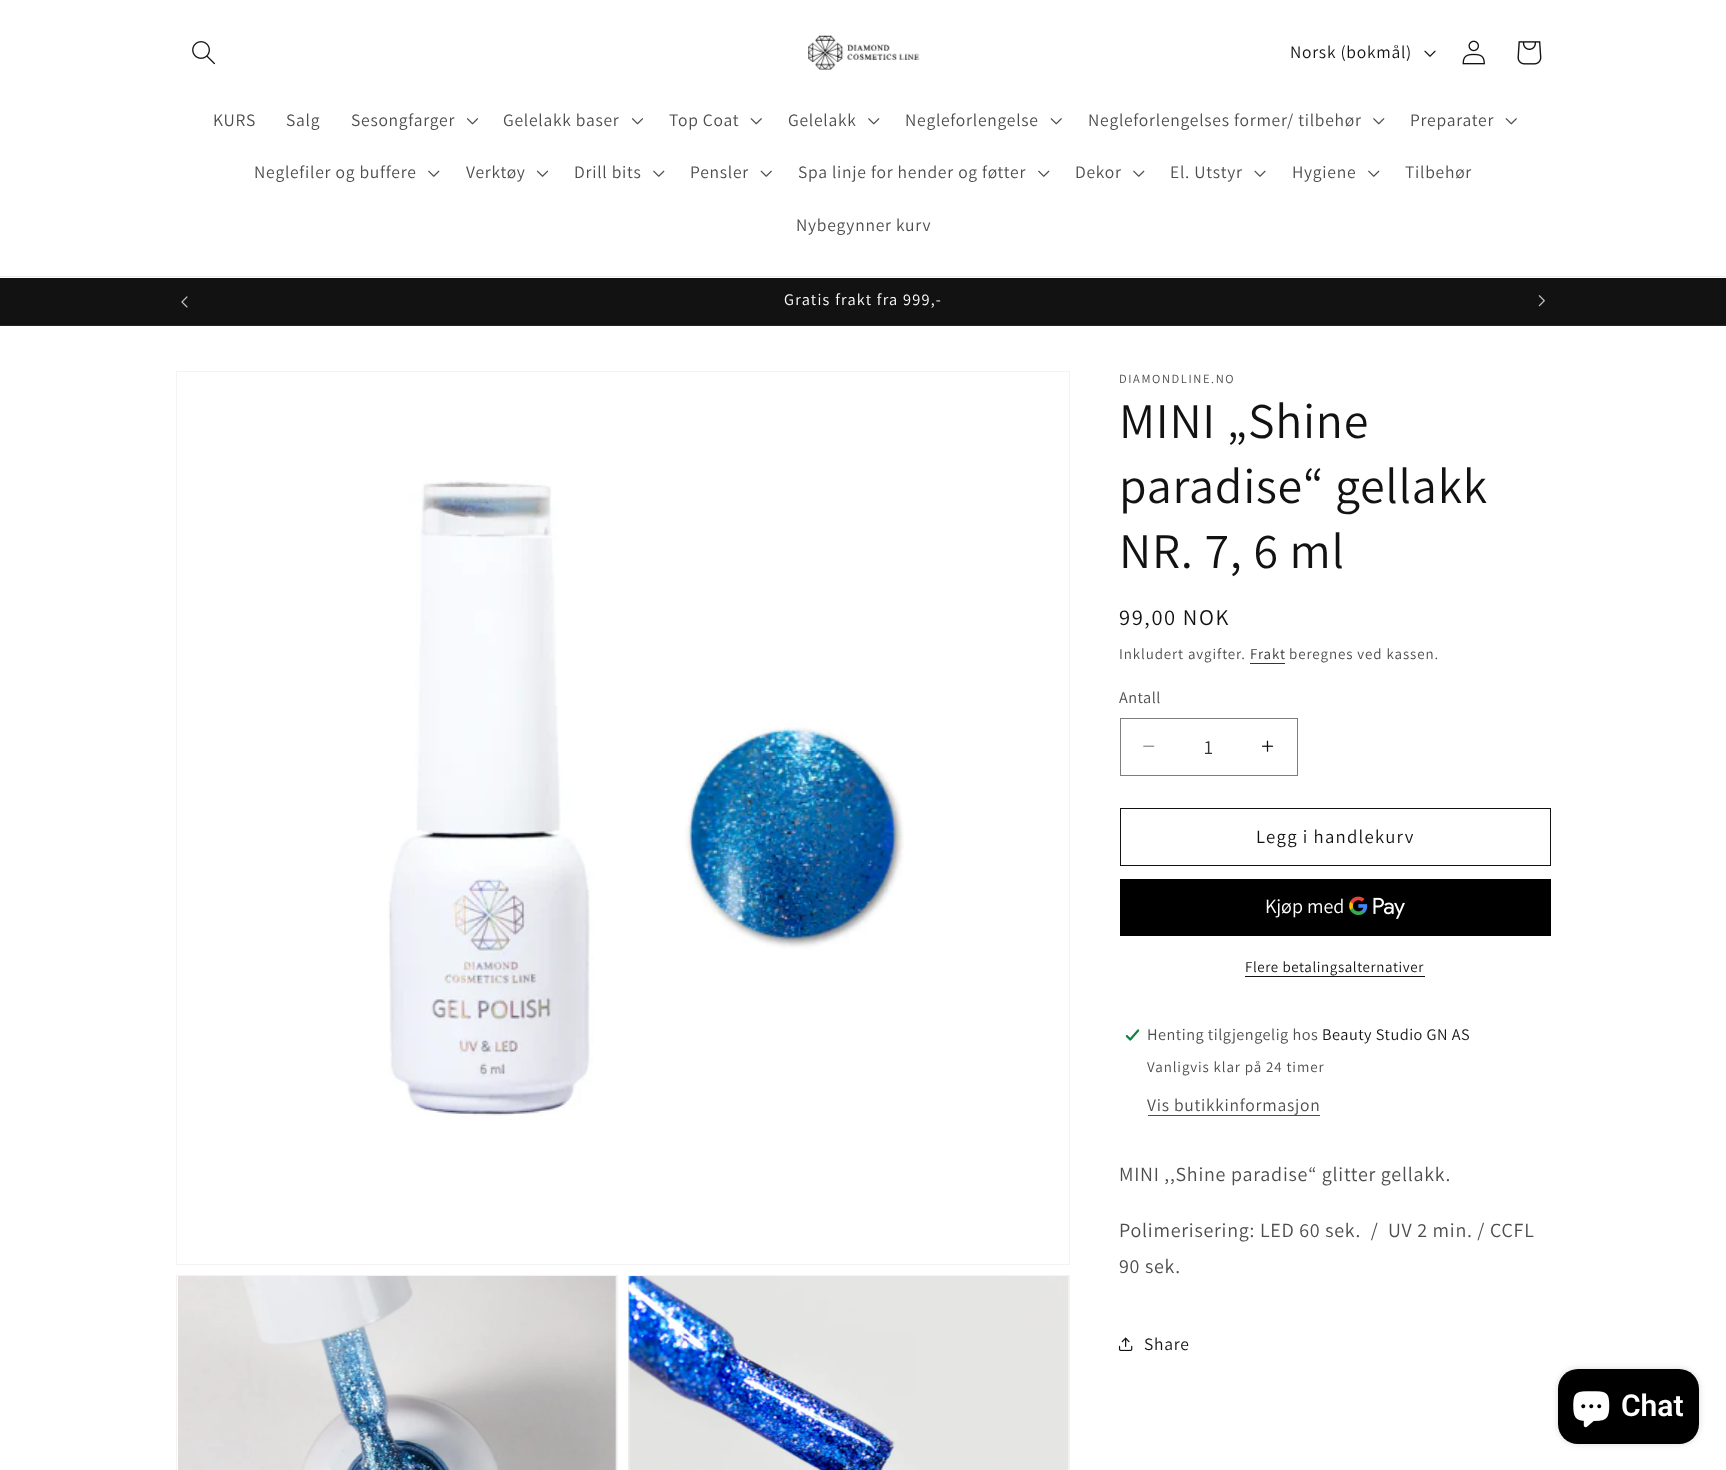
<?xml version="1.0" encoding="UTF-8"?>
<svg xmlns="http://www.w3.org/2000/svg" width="1726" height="1470">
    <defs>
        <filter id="blur1" x="-50%" y="-200%" width="200%" height="500%"><feGaussianBlur stdDeviation="3"/></filter>
    </defs>
    <rect width="100%" height="100%" fill="#FFFFFF"/>
    <rect x="0" y="276" width="1726" height="1" fill="#ECECEC"/>
    <image x="192" y="41" width="23" height="24" href="img_01.png"/>
    <image x="808" y="35" width="112" height="35" href="img_02.png"/>
    <text x="1290" y="58" font-family="Assistant" font-size="17.5" letter-spacing="0.75" fill="#121212">Norsk (bokmål)</text>
    <image x="1424" y="50" width="12" height="7" href="img_03.png"/>
    <image x="1462" y="40" width="23" height="25" href="img_04.png"/>
    <image x="1517" y="41" width="25" height="24" href="img_05.png"/>
    <text x="213" y="126" font-family="Assistant" font-size="17.5" letter-spacing="0.75" fill="#4D4D4D">KURS</text>
    <text x="286" y="126" font-family="Assistant" font-size="17.5" letter-spacing="0.75" fill="#4D4D4D">Salg</text>
    <text x="351" y="126" font-family="Assistant" font-size="17.5" letter-spacing="0.75" fill="#4D4D4D">Sesongfarger</text>
    <image x="466" y="118" width="13" height="7" href="img_06.png"/>
    <text x="503" y="126" font-family="Assistant" font-size="17.5" letter-spacing="0.75" fill="#4D4D4D">Gelelakk baser</text>
    <image x="631" y="118" width="13" height="7" href="img_06.png"/>
    <text x="669" y="126" font-family="Assistant" font-size="17.5" letter-spacing="0.75" fill="#4D4D4D">Top Coat</text>
    <image x="750" y="118" width="12" height="7" href="img_07.png"/>
    <text x="788" y="126" font-family="Assistant" font-size="17.5" letter-spacing="0.75" fill="#4D4D4D">Gelelakk</text>
    <image x="868" y="118" width="12" height="7" href="img_08.png"/>
    <text x="905" y="126" font-family="Assistant" font-size="17.5" letter-spacing="0.75" fill="#4D4D4D">Negleforlengelse</text>
    <image x="1050" y="118" width="12" height="7" href="img_07.png"/>
    <text x="1088" y="126" font-family="Assistant" font-size="17.5" letter-spacing="0.75" fill="#4D4D4D">Negleforlengelses former/ tilbehør</text>
    <image x="1373" y="118" width="12" height="7" href="img_08.png"/>
    <text x="1410" y="126" font-family="Assistant" font-size="17.5" letter-spacing="0.75" fill="#4D4D4D">Preparater</text>
    <image x="1505" y="118" width="12" height="7" href="img_07.png"/>
    <text x="254" y="178" font-family="Assistant" font-size="17.5" letter-spacing="0.75" fill="#4D4D4D">Neglefiler og buffere</text>
    <image x="428" y="170" width="12" height="7" href="img_09.png"/>
    <text x="466" y="178" font-family="Assistant" font-size="17.5" letter-spacing="0.75" fill="#4D4D4D">Verktøy</text>
    <image x="536" y="170" width="13" height="7" href="img_10.png"/>
    <text x="574" y="178" font-family="Assistant" font-size="17.5" letter-spacing="0.75" fill="#4D4D4D">Drill bits</text>
    <image x="653" y="170" width="12" height="7" href="img_09.png"/>
    <text x="690" y="178" font-family="Assistant" font-size="17.5" letter-spacing="0.75" fill="#4D4D4D">Pensler</text>
    <image x="760" y="170" width="12" height="7" href="img_11.png"/>
    <text x="798" y="178" font-family="Assistant" font-size="17.5" letter-spacing="0.75" fill="#4D4D4D">Spa linje for hender og føtter</text>
    <image x="1038" y="170" width="12" height="7" href="img_09.png"/>
    <text x="1075" y="178" font-family="Assistant" font-size="17.5" letter-spacing="0.75" fill="#4D4D4D">Dekor</text>
    <image x="1133" y="170" width="12" height="7" href="img_09.png"/>
    <text x="1170" y="178" font-family="Assistant" font-size="17.5" letter-spacing="0.75" fill="#4D4D4D">El. Utstyr</text>
    <image x="1254" y="170" width="12" height="7" href="img_12.png"/>
    <text x="1292" y="178" font-family="Assistant" font-size="17.5" letter-spacing="0.75" fill="#4D4D4D">Hygiene</text>
    <image x="1368" y="170" width="12" height="7" href="img_09.png"/>
    <text x="1405" y="178" font-family="Assistant" font-size="17.5" letter-spacing="0.75" fill="#4D4D4D">Tilbehør</text>
    <text x="796" y="231" font-family="Assistant" font-size="17.5" letter-spacing="0.75" fill="#4D4D4D">Nybegynner kurv</text>
    <rect x="0" y="278" width="1726" height="47" fill="#121212"/>
    <rect x="0" y="325" width="1726" height="1" fill="#252525"/>
    <image x="181" y="296" width="7" height="12" href="img_13.png"/>
    <text x="784" y="305" font-family="Assistant" font-size="16.25" letter-spacing="1.25" fill="#FFFFFF">Gratis frakt fra 999,-</text>
    <image x="1538" y="295" width="7" height="12" href="img_14.png"/>
    <rect x="176.5" y="371.5" width="893" height="893" fill="none" stroke="#F3F3F3"/>
    <image x="388" y="480" width="516" height="640" href="img_15.png"/>
    <rect x="176.5" y="1275.5" width="441" height="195" fill="none" stroke="#F3F3F3"/>
    <image x="178" y="1276" width="439" height="194" href="img_16.png"/>
    <rect x="628.5" y="1275.5" width="441" height="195" fill="none" stroke="#F3F3F3"/>
    <image x="628" y="1276" width="441" height="194" href="img_17.png"/>
    <text x="1119" y="383" font-family="Assistant" font-size="12.5" letter-spacing="1.6" fill="#4D4D4D">DIAMONDLINE.NO</text>
    <text font-family="Assistant" font-size="50" letter-spacing="0.75" fill="#121212">
        <tspan x="1119" y="438">MINI „Shine</tspan>
        <tspan x="1119" y="503">paradise“ gellakk</tspan>
        <tspan x="1119" y="568">NR. 7, 6 ml</tspan>
    </text>
    <text x="1119" y="625" font-family="Assistant" font-size="22.5" letter-spacing="1.6" fill="#121212">99,00 NOK</text>
    <text x="1119" y="659" font-family="Assistant" font-size="15" letter-spacing="0.9" fill="#4D4D4D">Inkludert avgifter.</text>
    <text x="1250" y="659" font-family="Assistant" font-size="15" letter-spacing="0.9" fill="#363636">Frakt</text>
    <rect x="1250" y="663" width="35" height="1" fill="#363636"/>
    <text x="1289" y="659" font-family="Assistant" font-size="15" letter-spacing="0.9" fill="#4D4D4D">beregnes ved kassen.</text>
    <text x="1119" y="703" font-family="Assistant" font-size="16.25" letter-spacing="0.5" fill="#4D4D4D">Antall</text>
    <image x="1143" y="745" width="12" height="2" href="img_18.png"/>
    <image x="1261" y="740" width="13" height="12" href="img_19.png"/>
    <rect x="1120.5" y="718.5" width="177" height="57" fill="none" stroke="#7D7D7D"/>
    <text x="1204" y="754" font-family="Assistant" font-size="20" fill="#363636">1</text>
    <rect x="1120.5" y="808.5" width="430" height="57" fill="none" stroke="#121212"/>
    <text x="1256" y="843" font-family="Assistant" font-size="18.75" letter-spacing="1.25" fill="#121212">Legg i handlekurv</text>
    <rect x="1120" y="879" width="431" height="57" fill="#000000"/>
    <text x="1265" y="913" font-family="Assistant" font-size="20" fill="#FFFFFF">Kjøp med</text>
    <image x="1349" y="896" width="56" height="23" href="img_20.png"/>
    <text x="1245" y="972" font-family="Assistant" font-size="15" letter-spacing="0.6" fill="#121212">Flere betalingsalternativer</text>
    <rect x="1245" y="976" width="180" height="1" fill="#121212"/>
    <image x="1125" y="1028" width="15" height="14" href="img_21.png"/>
    <text x="1147" y="1040" font-family="Assistant" font-size="16.25" letter-spacing="0.5" fill="#4D4D4D">Henting tilgjengelig hos</text>
    <text x="1322" y="1040" font-family="Assistant" font-size="16.25" letter-spacing="0.5" fill="#121212">Beauty Studio GN AS</text>
    <text x="1147" y="1072" font-family="Assistant" font-size="15" letter-spacing="0.9" fill="#4D4D4D">Vanligvis klar på 24 timer</text>
    <text x="1147" y="1111" font-family="Assistant" font-size="17.5" letter-spacing="0.75" fill="#4D4D4D">Vis butikkinformasjon</text>
    <rect x="1148" y="1115" width="172" height="1" fill="#4D4D4D"/>
    <text x="1119" y="1181" font-family="Assistant" font-size="20" letter-spacing="0.75" fill="#4D4D4D">MINI ,,Shine paradise“ glitter gellakk.</text>
    <text font-family="Assistant" font-size="20" letter-spacing="0.75" fill="#4D4D4D" xml:space="preserve"><tspan x="1119" y="1237">Polimerisering: LED 60 sek.  /  UV 2 min. / CCFL</tspan><tspan x="1119" y="1273">90 sek.</tspan></text>
    <image x="1118" y="1337" width="15" height="14" href="img_22.png"/>
    <text x="1144" y="1350" font-family="Assistant" font-size="17.5" letter-spacing="0.75" fill="#121212">Share</text>
    <rect x="1558" y="1369" width="141" height="75" rx="20" fill="#000000" fill-opacity="0.15" filter="url(#blur1)"/>
    <rect x="1558" y="1369" width="141" height="75" rx="20" fill="#000000"/>
    <image x="1573" y="1391" width="37" height="37" href="img_23.png"/>
    <text x="1621" y="1416" font-family="Roboto" font-size="30" font-weight="600" fill="#FFFFFF">Chat</text>
</svg>
